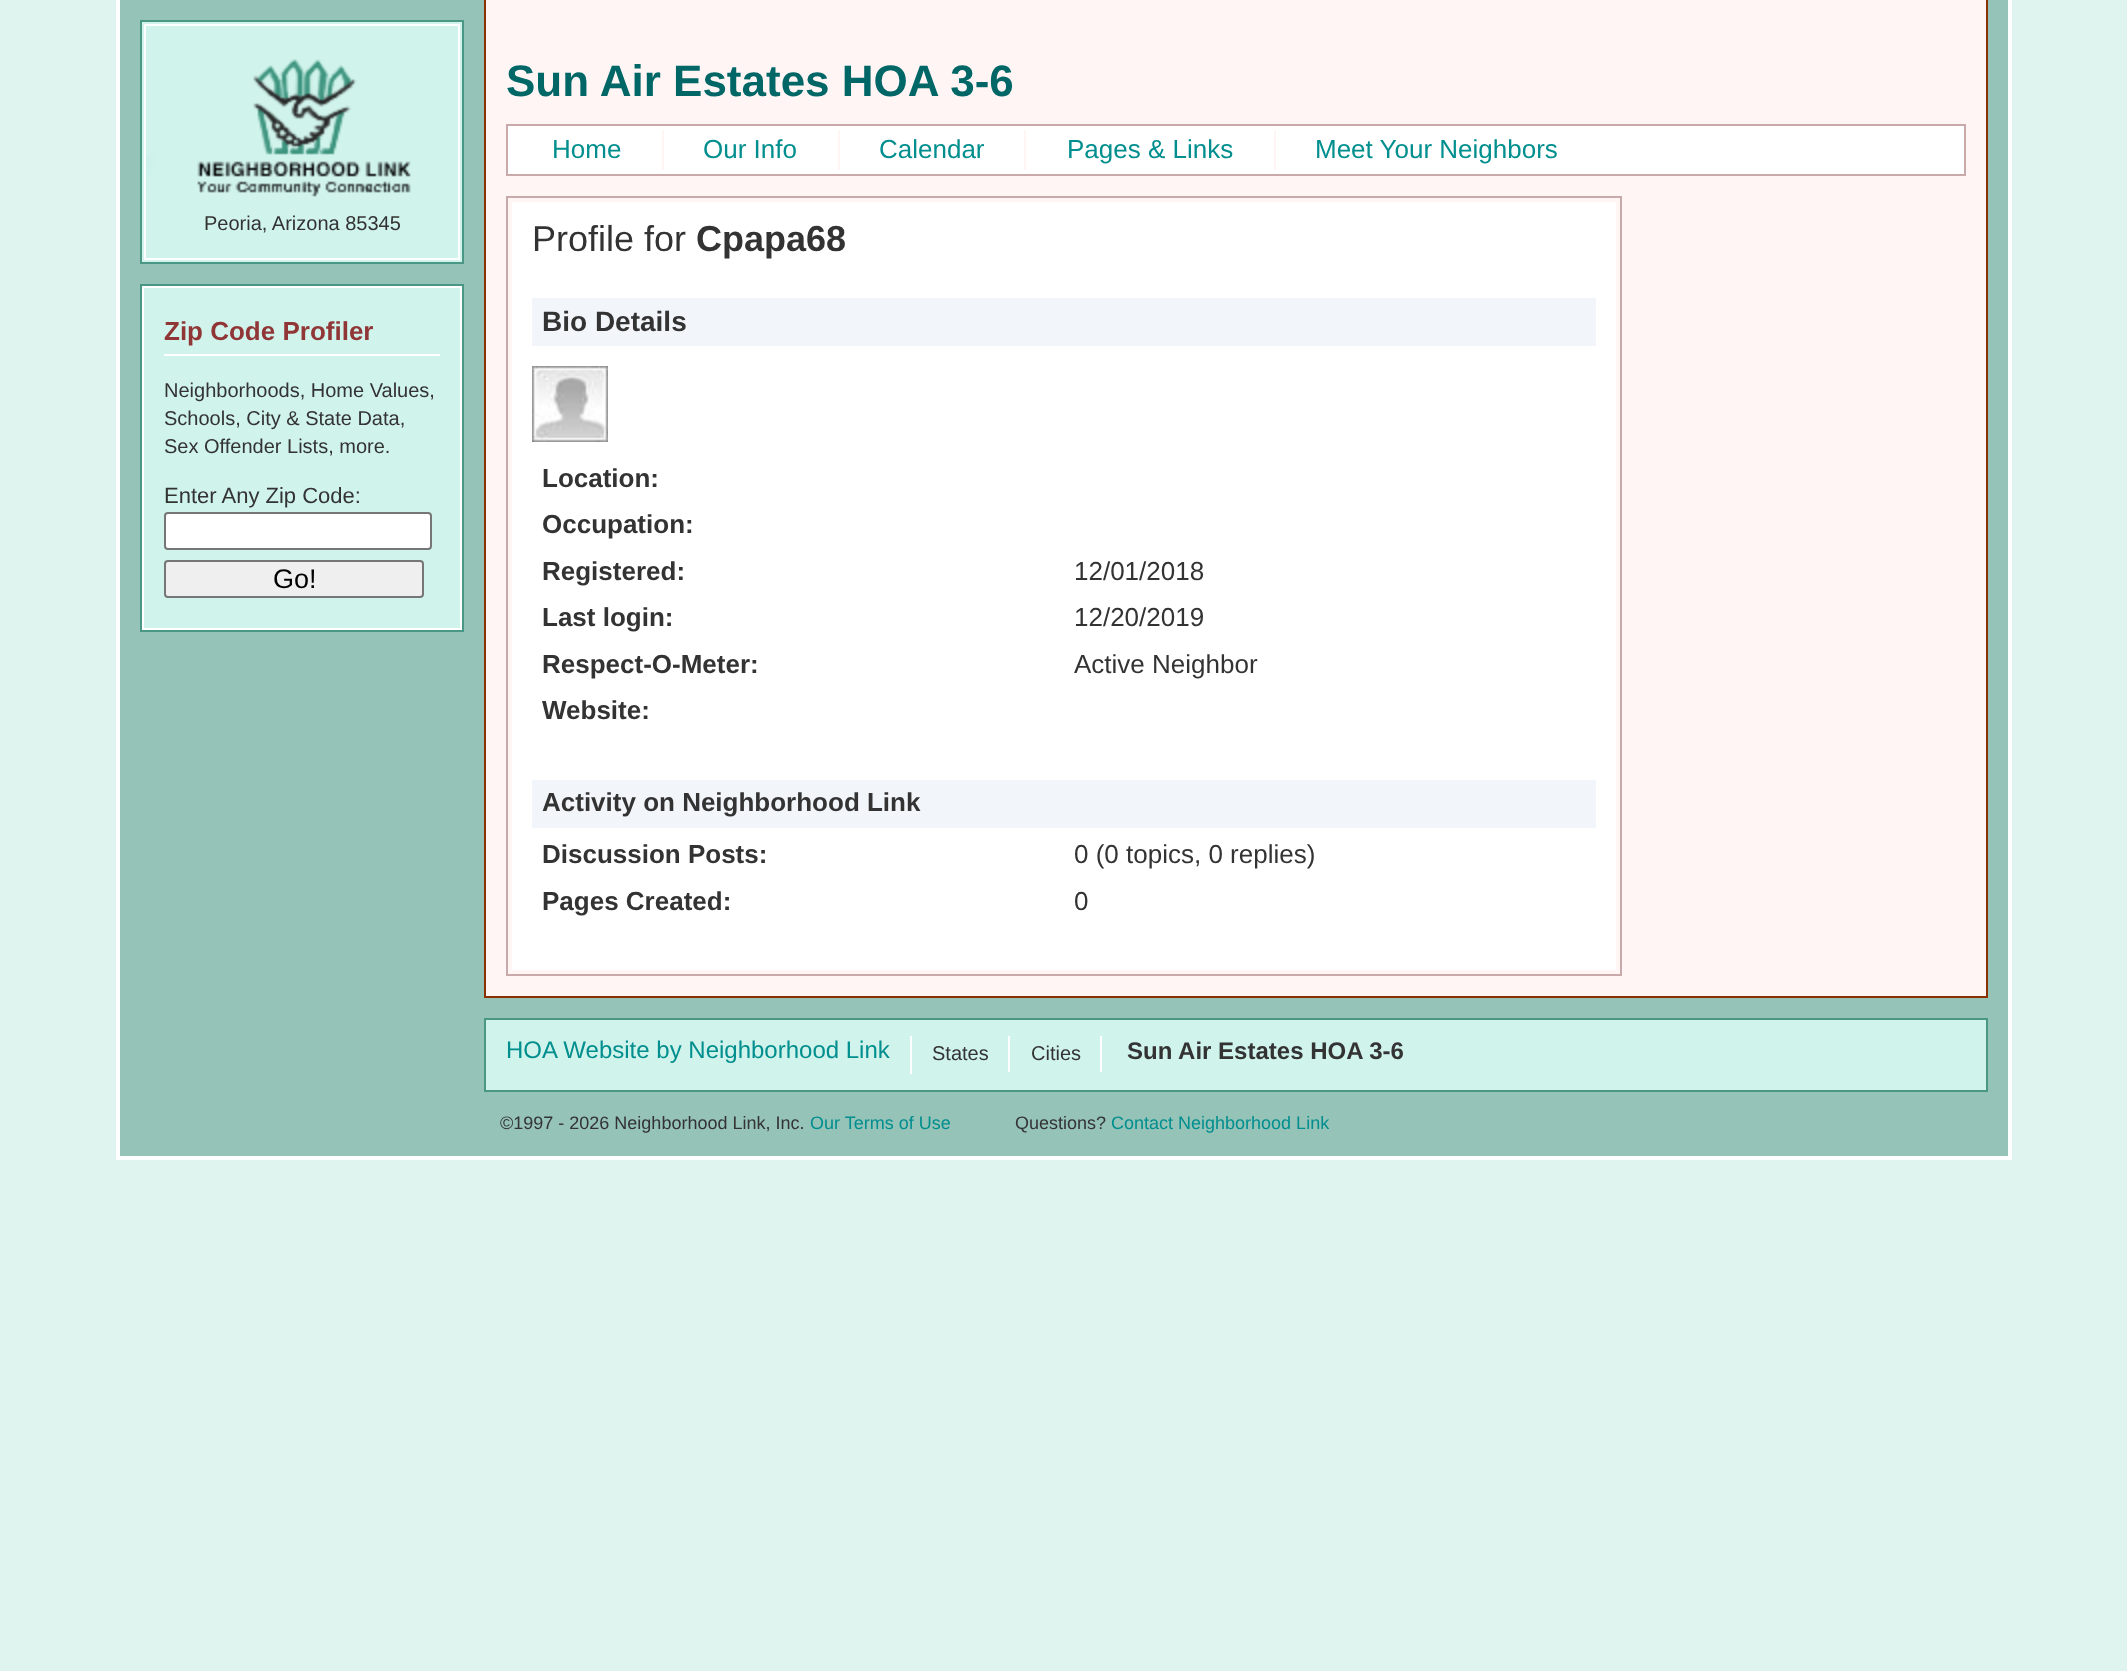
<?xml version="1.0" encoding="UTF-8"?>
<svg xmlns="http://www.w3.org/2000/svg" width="2127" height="1671">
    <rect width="100%" height="100%" fill="#DFF4EF"/>
    <rect x="120" y="0" width="1888" height="1156" fill="#96C3B8"/>
    <rect x="2008" y="0" width="4" height="1160" fill="#FFFFFF"/>
    <rect x="116" y="1156" width="1896" height="4" fill="#FFFFFF"/>
    <rect x="116" y="0" width="4" height="1160" fill="#FFFFFF"/>
    <rect x="486" y="0" width="1500" height="996" fill="#FFF5F5"/>
    <rect x="1986" y="0" width="2" height="998" fill="#893101"/>
    <rect x="484" y="0" width="2" height="40" fill="#893101"/>
    <rect x="141" y="21" width="322" height="242" fill="#D0F3EB" stroke="#499784" stroke-width="2"/>
    <rect x="145" y="25" width="314" height="234" fill="none" stroke="#FFFFFF" stroke-width="2"/>
    <image x="146" y="59" width="265" height="138" href="img_01.png"/>
    <text x="204" y="230" font-family="Liberation Sans" font-size="20" fill="#333333">Peoria, Arizona 85345</text>
    <rect x="144" y="288" width="316" height="340" fill="#D0F3EB"/>
    <rect x="141" y="285" width="322" height="346" fill="none" stroke="#499784" stroke-width="2"/>
    <rect x="143" y="287" width="318" height="342" fill="none" stroke="#FFFFFF" stroke-width="2"/>
    <rect x="164" y="354" width="276" height="2" fill="#FFFFFF"/>
    <text x="164" y="340" font-family="Liberation Sans" font-size="26" font-weight="700" fill="#913636">Zip Code Profiler</text>
    <text font-family="Liberation Sans" font-size="20" fill="#333333">
        <tspan x="164" y="397">Neighborhoods, Home Values,</tspan>
        <tspan x="164" y="425">Schools, City &amp; State Data,</tspan>
        <tspan x="164" y="453">Sex Offender Lists, more.</tspan>
    </text>
    <text x="164" y="503" font-family="Liberation Sans" font-size="22" fill="#333333">Enter Any Zip Code:</text>
    <rect x="165" y="513" width="266" height="36" rx="3" fill="#FFFFFF" stroke="#767676" stroke-width="2"/>
    <rect x="165" y="561" width="258" height="36" rx="3" fill="#EFEFEF" stroke="#767676" stroke-width="2"/>
    <text x="273" y="588" font-family="Liberation Sans" font-size="27" fill="#000000">Go!</text>
    <rect x="484" y="996" width="1504" height="2" fill="#893101"/>
    <rect x="484" y="40" width="2" height="958" fill="#893101"/>
    <text x="506" y="96" font-family="Liberation Sans" font-size="44" font-weight="700" fill="#006666">Sun Air Estates HOA 3-6</text>
    <rect x="507" y="125" width="1458" height="50" fill="none" stroke="#C9A9A9" stroke-width="2"/>
    <rect x="508" y="126" width="1456" height="48" fill="#FFFFFF"/>
    <rect x="662" y="130" width="2" height="40" fill="#FFF5F5"/>
    <text x="552" y="158" font-family="Liberation Sans" font-size="26" fill="#008E8E">Home</text>
    <rect x="838" y="130" width="2" height="40" fill="#FFF5F5"/>
    <text x="703" y="158" font-family="Liberation Sans" font-size="26" fill="#008E8E">Our Info</text>
    <rect x="1024" y="130" width="2" height="40" fill="#FFF5F5"/>
    <text x="879" y="158" font-family="Liberation Sans" font-size="26" fill="#008E8E">Calendar</text>
    <rect x="1274" y="130" width="2" height="40" fill="#FFF5F5"/>
    <text x="1067" y="158" font-family="Liberation Sans" font-size="26" fill="#008E8E">Pages &amp; Links</text>
    <text x="1315" y="158" font-family="Liberation Sans" font-size="26" fill="#008E8E">Meet Your Neighbors</text>
    <rect x="507" y="197" width="1114" height="778" fill="none" stroke="#C9A9A9" stroke-width="2"/>
    <rect x="512" y="202" width="1104" height="768" fill="#FFFFFF"/>
    <text x="532" y="251" font-family="Liberation Sans" font-size="36" fill="#333333">Profile for</text>
    <text x="696" y="251" font-family="Liberation Sans" font-size="36" font-weight="700" fill="#333333">Cpapa68</text>
    <rect x="532" y="298" width="1064" height="48" fill="#F2F6FA"/>
    <text x="542" y="331" font-family="Liberation Sans" font-size="28" font-weight="700" fill="#333333">Bio Details</text>
    <image x="532" y="366" width="76" height="76" href="img_02.png"/>
    <text font-family="Liberation Sans" font-size="26" font-weight="700" fill="#333333">
        <tspan x="542" y="487">Location:</tspan>
        <tspan x="542" y="533">Occupation:</tspan>
        <tspan x="542" y="580">Registered:</tspan>
    </text>
    <text x="1074" y="580" font-family="Liberation Sans" font-size="26" fill="#333333">12/01/2018</text>
    <text x="542" y="626" font-family="Liberation Sans" font-size="26" font-weight="700" fill="#333333">Last login:</text>
    <text x="1074" y="626" font-family="Liberation Sans" font-size="26" fill="#333333">12/20/2019</text>
    <text x="542" y="673" font-family="Liberation Sans" font-size="26" font-weight="700" fill="#333333">Respect-O-Meter:</text>
    <text x="1074" y="673" font-family="Liberation Sans" font-size="26" fill="#333333">Active Neighbor</text>
    <text x="542" y="719" font-family="Liberation Sans" font-size="26" font-weight="700" fill="#333333">Website:</text>
    <rect x="532" y="780" width="1064" height="48" fill="#F2F6FA"/>
    <text x="542" y="811" font-family="Liberation Sans" font-size="26" font-weight="700" fill="#333333">Activity on Neighborhood Link</text>
    <text x="542" y="863" font-family="Liberation Sans" font-size="26" font-weight="700" fill="#333333">Discussion Posts:</text>
    <text x="1074" y="863" font-family="Liberation Sans" font-size="26" fill="#333333">0 (0 topics, 0 replies)</text>
    <text x="542" y="910" font-family="Liberation Sans" font-size="26" font-weight="700" fill="#333333">Pages Created:</text>
    <text x="1074" y="910" font-family="Liberation Sans" font-size="26" fill="#333333">0</text>
    <rect x="485" y="1019" width="1502" height="72" fill="#D0F3EB" stroke="#499784" stroke-width="2"/>
    <rect x="910" y="1036" width="2" height="38" fill="#FFFFFF"/>
    <text x="506" y="1058" font-family="Liberation Sans" font-size="24" fill="#008E8E">HOA Website by Neighborhood Link</text>
    <rect x="1008" y="1036" width="2" height="36" fill="#FFFFFF"/>
    <text x="932" y="1060" font-family="Liberation Sans" font-size="20" fill="#333333">States</text>
    <rect x="1100" y="1036" width="2" height="36" fill="#FFFFFF"/>
    <text x="1031" y="1060" font-family="Liberation Sans" font-size="20" fill="#333333">Cities</text>
    <text x="1127" y="1059" font-family="Liberation Sans" font-size="24" font-weight="700" fill="#333333">Sun Air Estates HOA 3-6</text>
    <text x="500" y="1129" font-family="Liberation Sans" font-size="18" fill="#333333">©1997 - 2026 Neighborhood Link, Inc.</text>
    <text x="810" y="1129" font-family="Liberation Sans" font-size="18" fill="#008E8E">Our Terms of Use</text>
    <text x="1015" y="1129" font-family="Liberation Sans" font-size="18" fill="#333333">Questions?</text>
    <text x="1111" y="1129" font-family="Liberation Sans" font-size="18" fill="#008E8E">Contact Neighborhood Link</text>
</svg>
